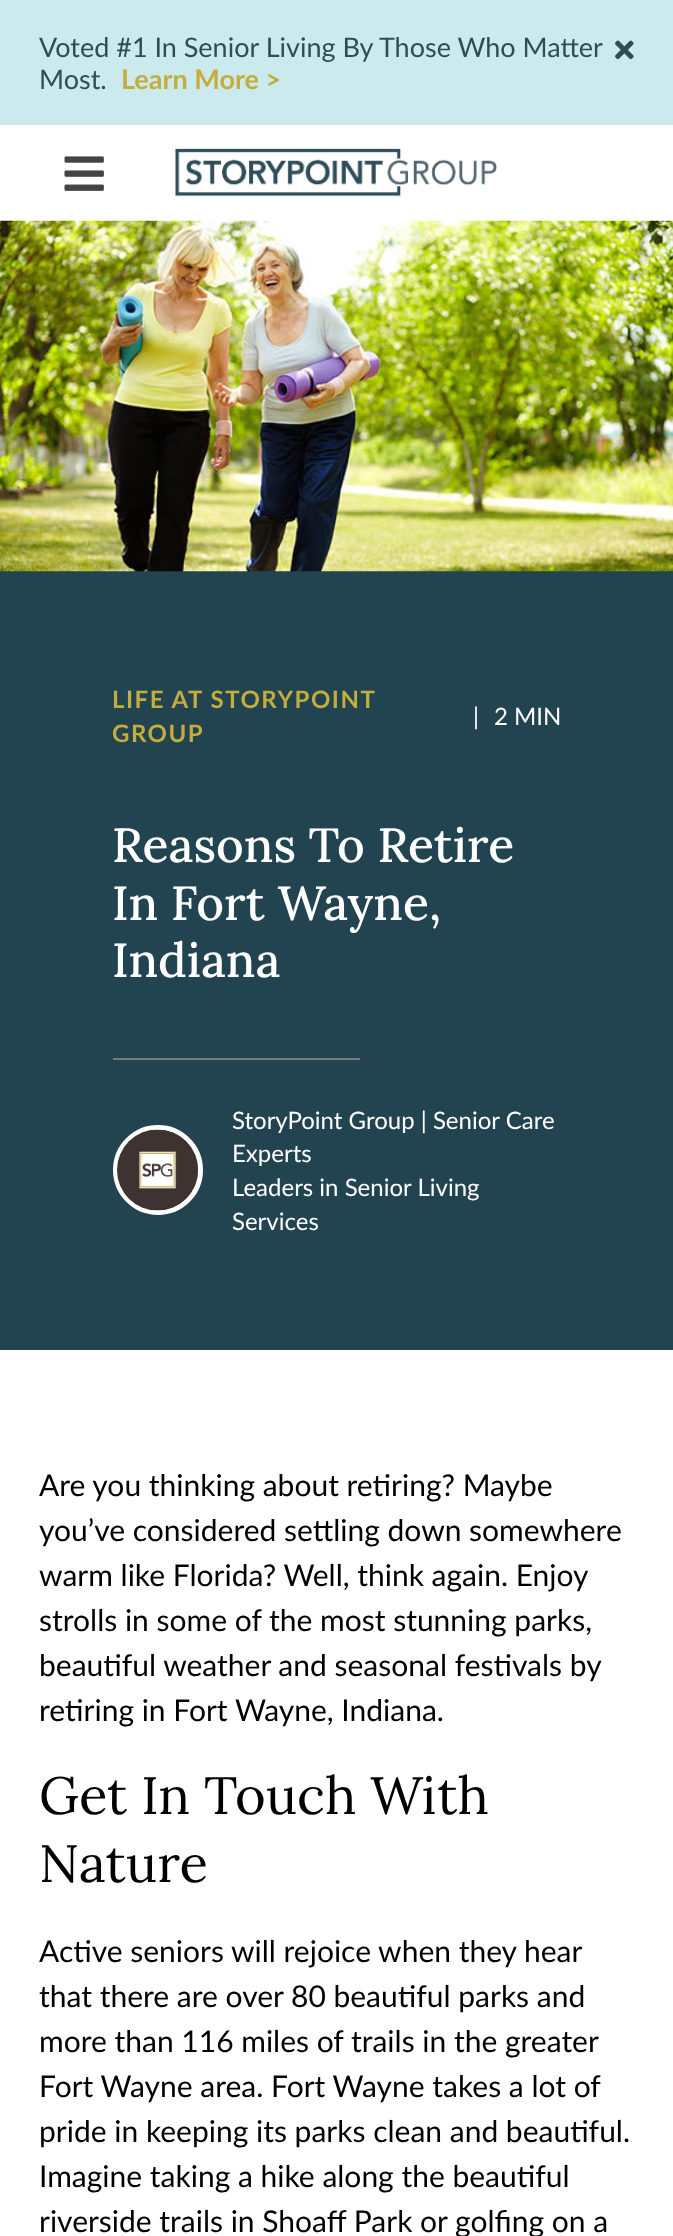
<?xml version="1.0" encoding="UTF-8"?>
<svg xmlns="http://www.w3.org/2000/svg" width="673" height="2236">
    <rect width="100%" height="100%" fill="#FFFFFF"/>
    <rect x="0" y="0" width="673" height="125" fill="#CBEAED"/>
    <text font-family="Lato" font-size="27" fill="#304C58">
        <tspan x="39" y="57">Voted #1 In Senior Living By Those Who Matter</tspan>
        <tspan x="39" y="89">Most.</tspan>
    </text>
    <text x="121" y="89" font-family="Lato" font-size="27" font-weight="700" fill="#C4AD3D">Learn More &gt;</text>
    <image x="615" y="40" width="19" height="20" href="img_01.png"/>
    <image x="64" y="156" width="40" height="35" href="img_02.png"/>
    <image x="175" y="148" width="322" height="49" href="img_03.png"/>
    <rect x="0" y="571" width="673" height="779" fill="#224450"/>
    <image x="0" y="220" width="673" height="352" href="img_04.png"/>
    <text font-family="Lato" font-size="24" font-weight="700" letter-spacing="1.5" fill="#C4AD3D">
        <tspan x="112" y="708">LIFE AT STORYPOINT</tspan>
        <tspan x="112" y="742">GROUP</tspan>
    </text>
    <text x="473" y="725" font-family="Lato" font-size="24" fill="#FFFFFF">|</text>
    <text x="494" y="725" font-family="Lato" font-size="24" fill="#FFFFFF">2 MIN</text>
    <text font-family="Lora" font-size="48" font-weight="500" fill="#FFFFFF">
        <tspan x="112" y="862">Reasons To Retire</tspan>
        <tspan x="112" y="920">In Fort Wayne,</tspan>
        <tspan x="112" y="977">Indiana</tspan>
    </text>
    <rect x="113" y="1058" width="247" height="2" fill="#797979"/>
    <circle cx="158" cy="1170" r="42.5" fill="none" stroke="#FFFFFF" stroke-width="5"/>
    <image x="117" y="1129" width="81" height="82" href="img_05.png"/>
    <text font-family="Lato" font-size="24" fill="#FFFFFF">
        <tspan x="232" y="1129">StoryPoint Group | Senior Care</tspan>
        <tspan x="232" y="1162">Experts</tspan>
        <tspan x="232" y="1196">Leaders in Senior Living</tspan>
        <tspan x="232" y="1230">Services</tspan>
    </text>
    <text font-family="Lato" font-size="30" fill="#000000">
        <tspan x="39" y="1496">Are you thinking about retiring? Maybe</tspan>
        <tspan x="39" y="1541">you’ve considered settling down somewhere</tspan>
        <tspan x="39" y="1586">warm like Florida? Well, think again. Enjoy</tspan>
        <tspan x="39" y="1631">strolls in some of the most stunning parks,</tspan>
        <tspan x="39" y="1676">beautiful weather and seasonal festivals by</tspan>
        <tspan x="39" y="1721">retiring in Fort Wayne, Indiana.</tspan>
    </text>
    <text font-family="Lora" font-size="52.5" fill="#000000">
        <tspan x="39" y="1814">Get In Touch With</tspan>
        <tspan x="39" y="1882">Nature</tspan>
    </text>
    <text font-family="Lato" font-size="30" fill="#000000">
        <tspan x="39" y="1962">Active seniors will rejoice when they hear</tspan>
        <tspan x="39" y="2007">that there are over 80 beautiful parks and</tspan>
        <tspan x="39" y="2052">more than 116 miles of trails in the greater</tspan>
        <tspan x="39" y="2097">Fort Wayne area. Fort Wayne takes a lot of</tspan>
        <tspan x="39" y="2142">pride in keeping its parks clean and beautiful.</tspan>
        <tspan x="39" y="2187">Imagine taking a hike along the beautiful</tspan>
        <tspan x="39" y="2232">riverside trails in Shoaff Park or golfing on a</tspan>
    </text>
</svg>
